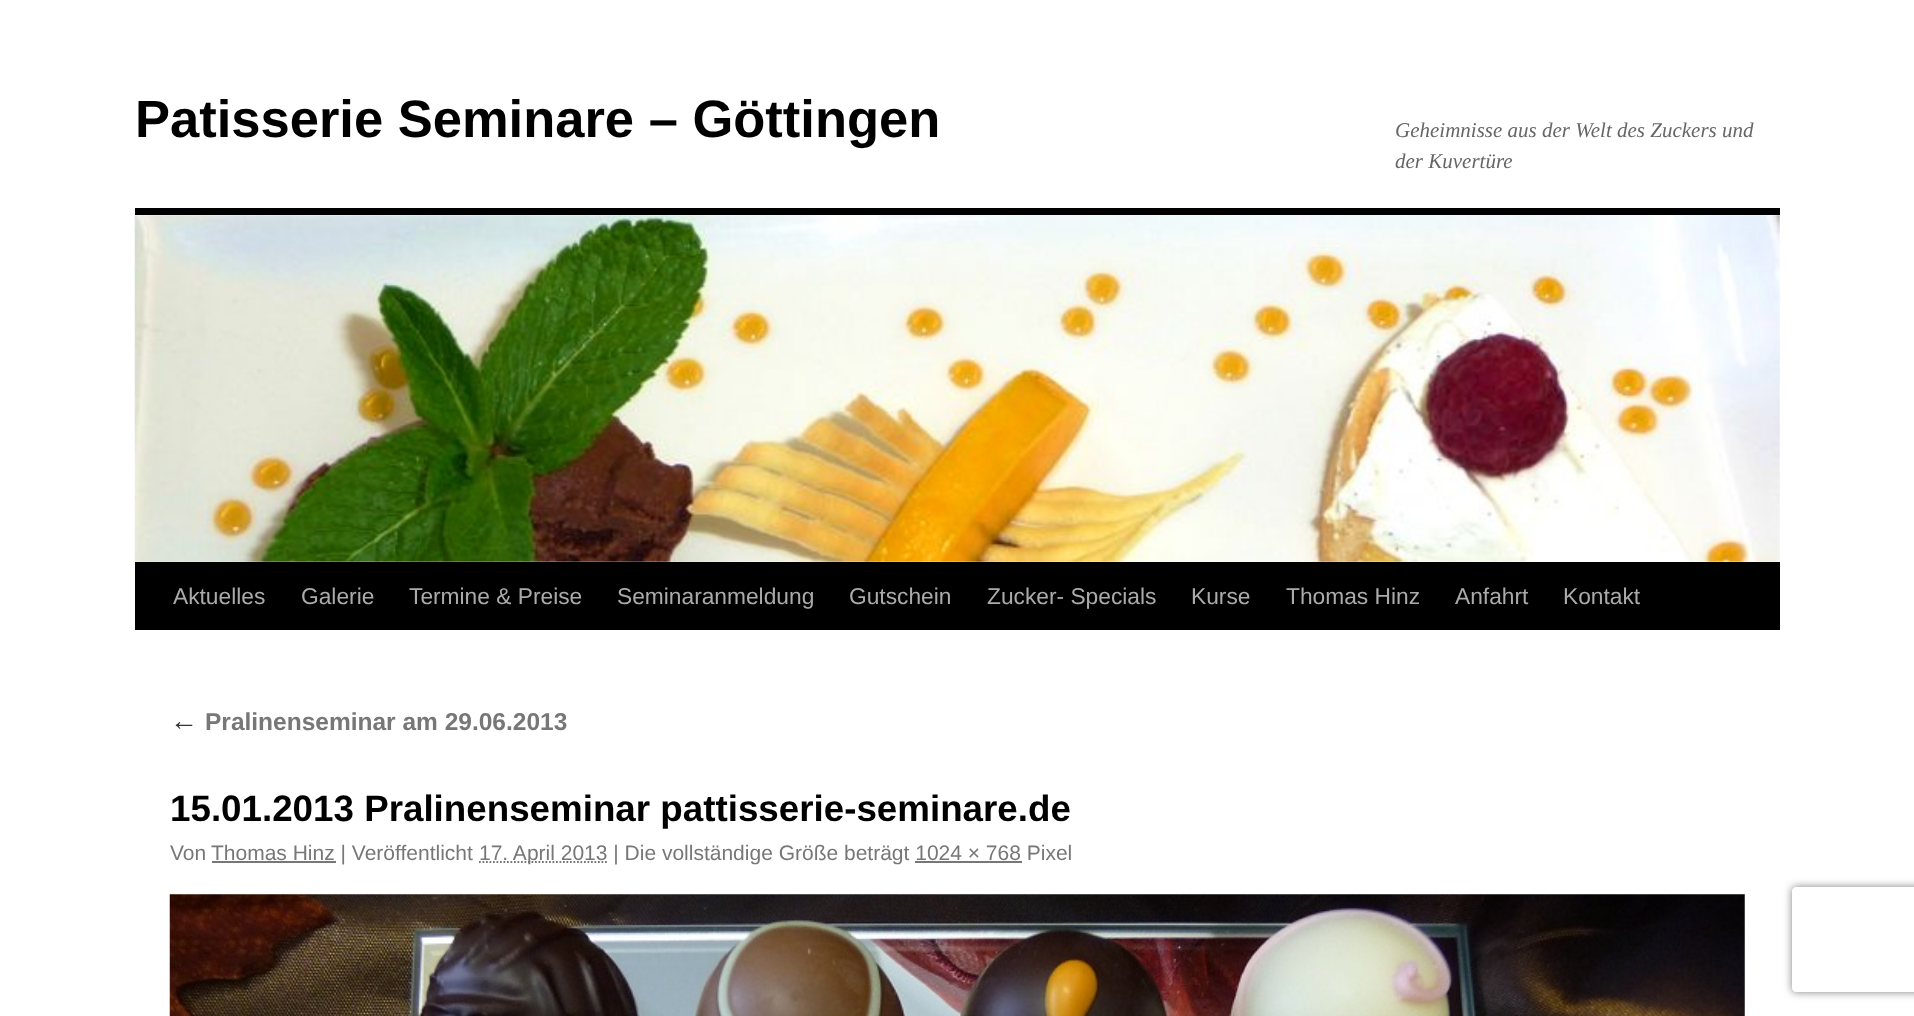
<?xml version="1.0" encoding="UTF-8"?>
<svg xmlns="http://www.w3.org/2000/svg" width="1914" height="1016">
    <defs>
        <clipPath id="clip1"><path d="M 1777 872 H 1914 V 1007 H 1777 Z M 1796 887 H 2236 C 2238 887 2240 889 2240 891 V 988 C 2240 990 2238 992 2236 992 H 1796 C 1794 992 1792 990 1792 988 V 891 C 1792 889 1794 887 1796 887 Z" clip-rule="evenodd"/></clipPath>
        <filter id="blur1" x="-50%" y="-200%" width="200%" height="500%"><feGaussianBlur stdDeviation="4.5"/></filter>
    </defs>
    <rect width="100%" height="100%" fill="#FFFFFF"/>
    <text x="135" y="137" font-family="Liberation Sans" font-size="52.5" font-weight="700" fill="#000000">Patisserie Seminare – Göttingen</text>
    <text font-family="Liberation Serif" font-size="21" font-style="italic" fill="#666666">
        <tspan x="1395" y="137">Geheimnisse aus der Welt des Zuckers und</tspan>
        <tspan x="1395" y="168">der Kuvertüre</tspan>
    </text>
    <rect x="135" y="208" width="1645" height="7" fill="#000000"/>
    <rect x="135" y="562" width="1645" height="68" fill="#000000"/>
    <image x="134" y="215" width="1646" height="347" href="img_01.png"/>
    <text x="173" y="604" font-family="Liberation Sans" font-size="22.75" fill="#AAAAAA">Aktuelles</text>
    <text x="301" y="604" font-family="Liberation Sans" font-size="22.75" fill="#AAAAAA">Galerie</text>
    <text x="409" y="604" font-family="Liberation Sans" font-size="22.75" fill="#AAAAAA">Termine &amp; Preise</text>
    <text x="617" y="604" font-family="Liberation Sans" font-size="22.75" fill="#AAAAAA">Seminaranmeldung</text>
    <text x="849" y="604" font-family="Liberation Sans" font-size="22.75" fill="#AAAAAA">Gutschein</text>
    <text x="987" y="604" font-family="Liberation Sans" font-size="22.75" fill="#AAAAAA">Zucker- Specials</text>
    <text x="1191" y="604" font-family="Liberation Sans" font-size="22.75" fill="#AAAAAA">Kurse</text>
    <text x="1286" y="604" font-family="Liberation Sans" font-size="22.75" fill="#AAAAAA">Thomas Hinz</text>
    <text x="1455" y="604" font-family="Liberation Sans" font-size="22.75" fill="#AAAAAA">Anfahrt</text>
    <text x="1563" y="604" font-family="Liberation Sans" font-size="22.75" fill="#AAAAAA">Kontakt</text>
    <text x="170" y="730" font-family="Liberation Serif" font-size="28" font-style="italic" fill="#333333">←</text>
    <text x="205" y="730" font-family="Liberation Sans" font-size="24.5" font-weight="700" fill="#777777">Pralinenseminar am 29.06.2013</text>
    <text x="170" y="821" font-family="Liberation Sans" font-size="36.75" font-weight="700" fill="#000000">15.01.2013 Pralinenseminar pattisserie-seminare.de</text>
    <text x="170" y="860" font-family="Liberation Sans" font-size="21" fill="#777777">Von</text>
    <rect x="212" y="861" width="124" height="2" fill="#777777"/>
    <text x="211" y="860" font-family="Liberation Sans" font-size="21" fill="#777777">Thomas Hinz | Veröffentlicht</text>
    <path d="M 479 862 H 607.5" fill="none" stroke="#777777" stroke-width="1.8" stroke-dasharray="1.75 1.75"/>
    <text x="479" y="860" font-family="Liberation Sans" font-size="21" fill="#777777">17. April 2013 | Die vollständige Größe beträgt 1024 × 768 Pixel</text>
    <rect x="915" y="861" width="107" height="2" fill="#777777"/>
    <image x="169" y="894" width="1576" height="122" href="img_02.png"/>
    <g clip-path="url(#clip1)">
        <rect x="1792" y="887" width="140" height="105" rx="4" fill="#808080" filter="url(#blur1)"/>
    </g>
</svg>
